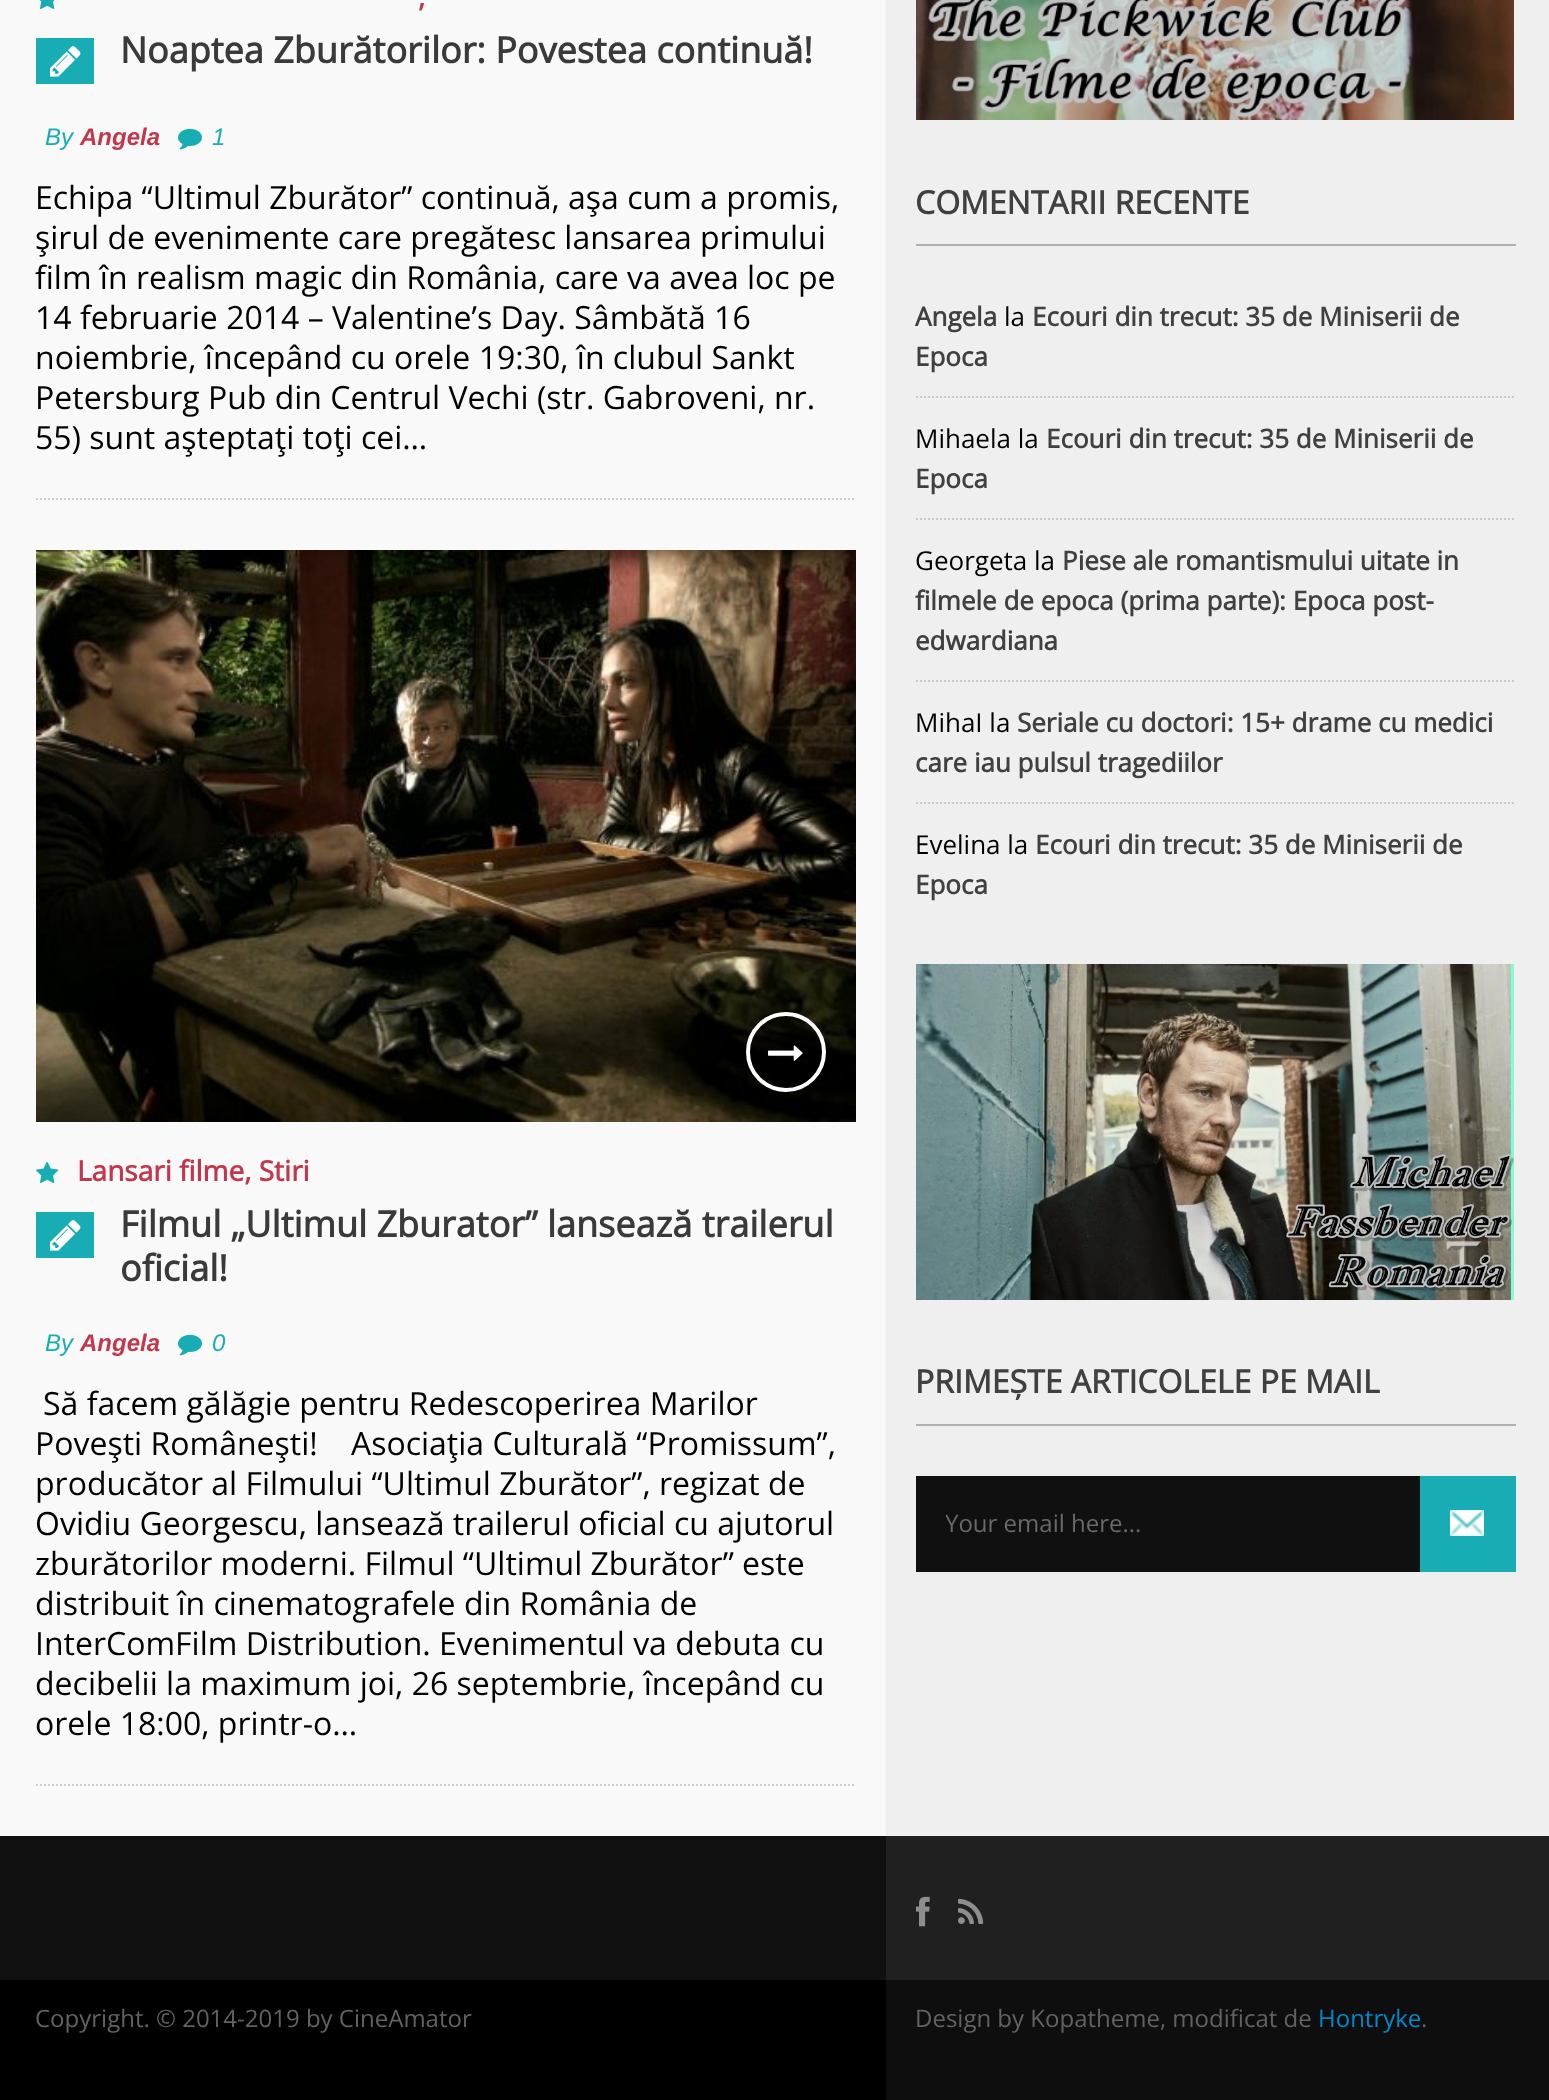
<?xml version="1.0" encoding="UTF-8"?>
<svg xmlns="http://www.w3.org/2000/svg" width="1549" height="2100">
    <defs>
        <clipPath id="clip1"><rect x="946" y="1506" width="540" height="34"/></clipPath>
    </defs>
    <rect width="100%" height="100%" fill="#F9F9F9"/>
    <path d="M 36 499 H 856" fill="none" stroke="#CECECE" stroke-width="2" stroke-dasharray="2 2"/>
    <image x="39" y="0" width="16" height="10" href="img_01.png"/>
    <text x="418" y="7" font-family="Open Sans" font-size="28" font-weight="700" fill="#C2374C">,</text>
    <rect x="36" y="38" width="58" height="46" fill="#18ADB5"/>
    <image x="50" y="46" width="31" height="31" href="img_02.png"/>
    <text x="120" y="63" font-family="Open Sans" font-size="36" font-weight="700" fill="#3A3A3A">Noaptea Zburătorilor: Povestea continuă!</text>
    <text x="45" y="145" font-family="Liberation Sans" font-size="24" font-style="italic" fill="#18ADB5">By</text>
    <text x="80" y="145" font-family="Liberation Sans" font-size="24" font-weight="700" font-style="italic" fill="#C2374C">Angela</text>
    <image x="178" y="128" width="24" height="22" href="img_03.png"/>
    <text x="212" y="145" font-family="Liberation Sans" font-size="24" font-style="italic" fill="#18ADB5">1</text>
    <text font-family="Open Sans" font-size="32" fill="#000000">
        <tspan x="35" y="209">Echipa “Ultimul Zburător” continuă, aşa cum a promis,</tspan>
        <tspan x="35" y="249">şirul de evenimente care pregătesc lansarea primului</tspan>
        <tspan x="35" y="289">film în realism magic din România, care va avea loc pe</tspan>
        <tspan x="35" y="329">14 februarie 2014 – Valentine’s Day. Sâmbătă 16</tspan>
        <tspan x="35" y="369">noiembrie, începând cu orele 19:30, în clubul Sankt</tspan>
        <tspan x="35" y="409">Petersburg Pub din Centrul Vechi (str. Gabroveni, nr.</tspan>
        <tspan x="35" y="449">55) sunt aşteptaţi toţi cei…</tspan>
    </text>
    <path d="M 36 1785 H 856" fill="none" stroke="#CECECE" stroke-width="2" stroke-dasharray="2 2"/>
    <image x="36" y="550" width="820" height="572" href="img_04.png"/>
    <circle cx="786" cy="1052" r="38" fill="#000000" fill-opacity="0.37" stroke="#FFFFFF" stroke-width="4"/>
    <image x="768" y="1045" width="35" height="16" href="img_05.png"/>
    <image x="36" y="1161" width="23" height="23" href="img_06.png"/>
    <text x="77" y="1181" font-family="Open Sans" font-size="28" font-weight="700" fill="#C2374C">Lansari filme, Stiri</text>
    <rect x="36" y="1212" width="58" height="46" fill="#18ADB5"/>
    <image x="50" y="1220" width="31" height="31" href="img_02.png"/>
    <text font-family="Open Sans" font-size="36" font-weight="700" fill="#3A3A3A">
        <tspan x="120" y="1237">Filmul „Ultimul Zburator” lansează trailerul</tspan>
        <tspan x="120" y="1281">oficial!</tspan>
    </text>
    <text x="45" y="1351" font-family="Liberation Sans" font-size="24" font-style="italic" fill="#18ADB5">By</text>
    <text x="80" y="1351" font-family="Liberation Sans" font-size="24" font-weight="700" font-style="italic" fill="#C2374C">Angela</text>
    <image x="178" y="1334" width="24" height="22" href="img_03.png"/>
    <text x="212" y="1351" font-family="Liberation Sans" font-size="24" font-style="italic" fill="#18ADB5">0</text>
    <text x="43" y="1415" font-family="Open Sans" font-size="32" fill="#000000">Să facem gălăgie pentru Redescoperirea Marilor</text>
    <text font-family="Open Sans" font-size="32" fill="#000000" xml:space="preserve"><tspan x="35" y="1455">Poveşti Româneşti!    Asociaţia Culturală “Promissum”,</tspan><tspan x="35" y="1495">producător al Filmului “Ultimul Zburător”, regizat de</tspan><tspan x="35" y="1535">Ovidiu Georgescu, lansează trailerul oficial cu ajutorul</tspan><tspan x="35" y="1575">zburătorilor moderni. Filmul “Ultimul Zburător” este</tspan><tspan x="35" y="1615">distribuit în cinematografele din România de</tspan><tspan x="35" y="1655">InterComFilm Distribution. Evenimentul va debuta cu</tspan><tspan x="35" y="1695">decibelii la maximum joi, 26 septembrie, începând cu</tspan><tspan x="35" y="1735">orele 18:00, printr-o…</tspan></text>
    <rect x="886" y="0" width="663" height="1836" fill="#EFEFEF"/>
    <image x="916" y="0" width="598" height="120" href="img_07.png"/>
    <rect x="916" y="244" width="600" height="2" fill="#B0B0B0"/>
    <text x="915" y="214" font-family="Open Sans" font-size="32" font-weight="700" fill="#404040">COMENTARII RECENTE</text>
    <text x="915" y="326" font-family="Open Sans" font-size="26" font-weight="700" fill="#404040">Angela</text>
    <text x="1004" y="326" font-family="Open Sans" font-size="26" fill="#000000">la</text>
    <text x="1032" y="326" font-family="Open Sans" font-size="26" font-weight="700" fill="#404040">Ecouri din trecut: 35 de Miniserii de</text>
    <text x="915" y="366" font-family="Open Sans" font-size="26" font-weight="700" fill="#404040">Epoca</text>
    <path d="M 916 397 H 1516" fill="none" stroke="#C9C9C9" stroke-width="2" stroke-dasharray="2 2"/>
    <text x="915" y="448" font-family="Open Sans" font-size="26" fill="#000000">Mihaela la</text>
    <text x="1046" y="448" font-family="Open Sans" font-size="26" font-weight="700" fill="#404040">Ecouri din trecut: 35 de Miniserii de</text>
    <text x="915" y="488" font-family="Open Sans" font-size="26" font-weight="700" fill="#404040">Epoca</text>
    <path d="M 916 519 H 1516" fill="none" stroke="#C9C9C9" stroke-width="2" stroke-dasharray="2 2"/>
    <text x="915" y="570" font-family="Open Sans" font-size="26" fill="#000000">Georgeta la</text>
    <text x="1062" y="570" font-family="Open Sans" font-size="26" font-weight="700" fill="#404040">Piese ale romantismului uitate in</text>
    <text font-family="Open Sans" font-size="26" font-weight="700" fill="#404040">
        <tspan x="915" y="610">filmele de epoca (prima parte): Epoca post-</tspan>
        <tspan x="915" y="650">edwardiana</tspan>
    </text>
    <path d="M 916 681 H 1516" fill="none" stroke="#C9C9C9" stroke-width="2" stroke-dasharray="2 2"/>
    <text x="915" y="732" font-family="Open Sans" font-size="26" fill="#000000">MihaI la</text>
    <text x="1017" y="732" font-family="Open Sans" font-size="26" font-weight="700" fill="#404040">Seriale cu doctori: 15+ drame cu medici</text>
    <text x="915" y="772" font-family="Open Sans" font-size="26" font-weight="700" fill="#404040">care iau pulsul tragediilor</text>
    <path d="M 916 803 H 1516" fill="none" stroke="#C9C9C9" stroke-width="2" stroke-dasharray="2 2"/>
    <text x="915" y="854" font-family="Open Sans" font-size="26" fill="#000000">Evelina la</text>
    <text x="1035" y="854" font-family="Open Sans" font-size="26" font-weight="700" fill="#404040">Ecouri din trecut: 35 de Miniserii de</text>
    <text x="915" y="894" font-family="Open Sans" font-size="26" font-weight="700" fill="#404040">Epoca</text>
    <image x="916" y="964" width="598" height="336" href="img_08.png"/>
    <rect x="916" y="1424" width="600" height="2" fill="#B0B0B0"/>
    <text x="915" y="1393" font-family="Open Sans" font-size="32" font-weight="700" fill="#404040">PRIMEȘTE ARTICOLELE PE MAIL</text>
    <rect x="916" y="1476" width="504" height="96" fill="#101010"/>
    <g clip-path="url(#clip1)">
        <text x="945" y="1532" font-family="Open Sans" font-size="24" fill="#696969">Your email here...</text>
    </g>
    <rect x="1420" y="1476" width="96" height="96" fill="#18ADB5"/>
    <image x="1450" y="1510" width="34" height="26" href="img_09.png"/>
    <rect x="0" y="1836" width="886" height="144" fill="#111111"/>
    <rect x="886" y="1836" width="663" height="144" fill="#202020"/>
    <image x="916" y="1896" width="14" height="31" href="img_10.png"/>
    <image x="958" y="1898" width="26" height="26" href="img_11.png"/>
    <rect x="0" y="1980" width="886" height="120" fill="#000000"/>
    <text x="35" y="2027" font-family="Open Sans" font-size="24" fill="#626262">Copyright. © 2014-2019 by CineAmator</text>
    <rect x="886" y="1980" width="663" height="120" fill="#0E0E0E"/>
    <text x="915" y="2027" font-family="Open Sans" font-size="24" fill="#626262">Design by Kopatheme, modificat de</text>
    <text x="1318" y="2027" font-family="Open Sans" font-size="24" fill="#0088CC">Hontryke</text>
    <text x="1421" y="2027" font-family="Open Sans" font-size="24" fill="#626262">.</text>
</svg>
